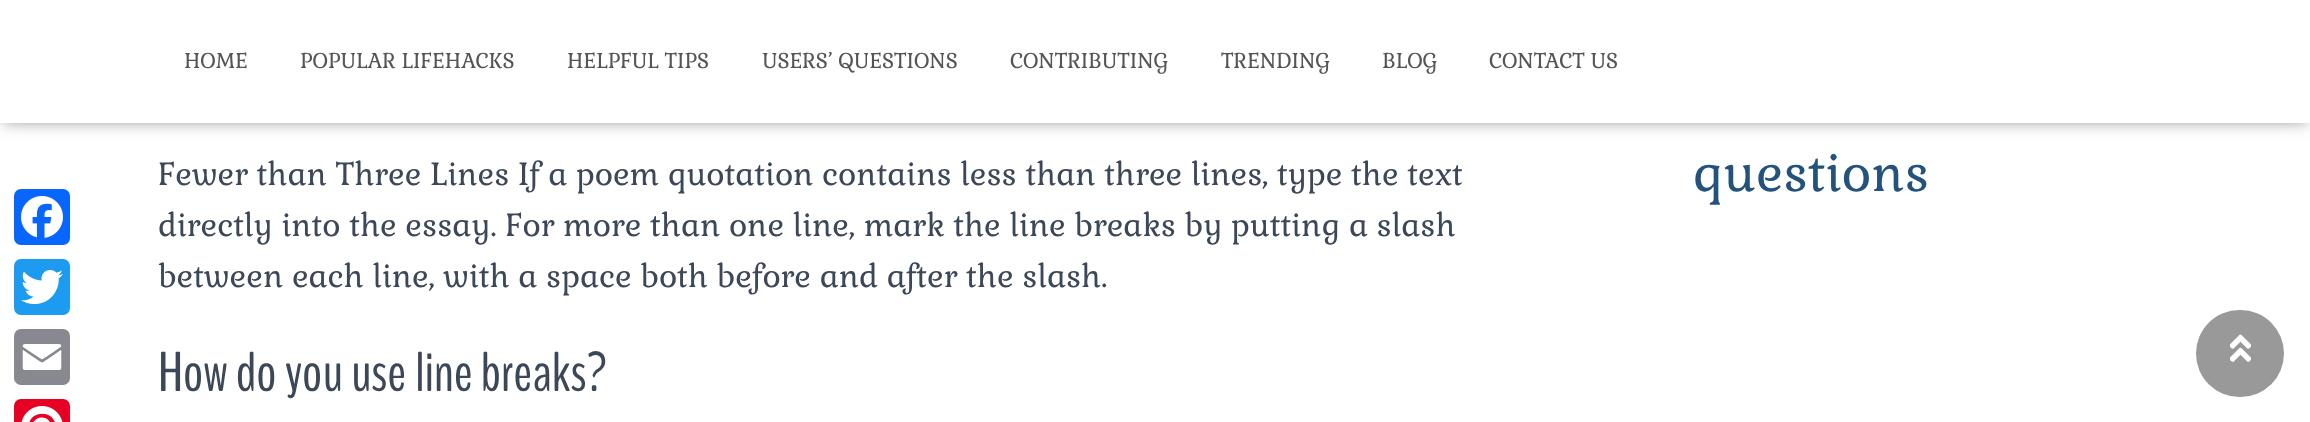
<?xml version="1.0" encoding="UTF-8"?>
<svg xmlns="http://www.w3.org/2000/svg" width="2310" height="422">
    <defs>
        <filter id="blur1" x="-50%" y="-200%" width="200%" height="500%"><feGaussianBlur stdDeviation="4.5"/></filter>
        <filter id="blur2" x="-50%" y="-200%" width="200%" height="500%"><feGaussianBlur stdDeviation="9"/></filter>
    </defs>
    <rect width="100%" height="100%" fill="#FFFFFF"/>
    <rect x="14" y="189" width="56" height="56" rx="7" fill="#0866FF"/>
    <image x="21" y="196" width="42" height="42" href="img_01.png"/>
    <rect x="14" y="259" width="56" height="56" rx="7" fill="#1D9BF0"/>
    <image x="21" y="269" width="42" height="36" href="img_02.png"/>
    <rect x="14" y="329" width="56" height="56" rx="7" fill="#888990"/>
    <image x="22" y="344" width="40" height="26" href="img_03.png"/>
    <rect x="14" y="399" width="56" height="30" rx="7" fill="#E60023"/>
    <image x="21" y="406" width="42" height="16" href="img_04.png"/>
    <rect x="4" y="11" width="2303" height="115" fill="#000000" fill-opacity="0.1" filter="url(#blur1)"/>
    <rect x="0" y="2" width="2310" height="122" fill="#000000" fill-opacity="0.12" filter="url(#blur2)"/>
    <rect x="11" y="12" width="2289" height="102" fill="#000000" fill-opacity="0.42" filter="url(#blur2)"/>
    <rect x="0" y="0" width="2310" height="123" fill="#FFFFFF"/>
    <text x="184" y="68" font-family="Gabriela" font-size="21" fill="#555555">HOME</text>
    <text x="300" y="68" font-family="Gabriela" font-size="21" fill="#555555">POPULAR LIFEHACKS</text>
    <text x="567" y="68" font-family="Gabriela" font-size="21" fill="#555555">HELPFUL TIPS</text>
    <text x="762" y="68" font-family="Gabriela" font-size="21" fill="#555555">USERS’ QUESTIONS</text>
    <text x="1010" y="68" font-family="Gabriela" font-size="21" fill="#555555">CONTRIBUTING</text>
    <text x="1221" y="68" font-family="Gabriela" font-size="21" fill="#555555">TRENDING</text>
    <text x="1382" y="68" font-family="Gabriela" font-size="21" fill="#555555">BLOG</text>
    <text x="1489" y="68" font-family="Gabriela" font-size="21" fill="#555555">CONTACT US</text>
    <text font-family="Gabriela" font-size="31.5" fill="#3C4858">
        <tspan x="158" y="185">Fewer than Three Lines If a poem quotation contains less than three lines, type the text</tspan>
        <tspan x="158" y="236">directly into the essay. For more than one line, mark the line breaks by putting a slash</tspan>
        <tspan x="158" y="287">between each line, with a space both before and after the slash.</tspan>
    </text>
    <text x="158" y="391" font-family="BenchNine" font-size="56" fill="#3C4858">How do you use line breaks?</text>
    <text x="1693" y="191" font-family="Gabriela" font-size="51.5" fill="#23527C">questions</text>
    <rect x="2196" y="310" width="88" height="87" rx="43.5" fill="#999999"/>
    <image x="2230" y="334" width="21" height="28" href="img_05.png"/>
</svg>
